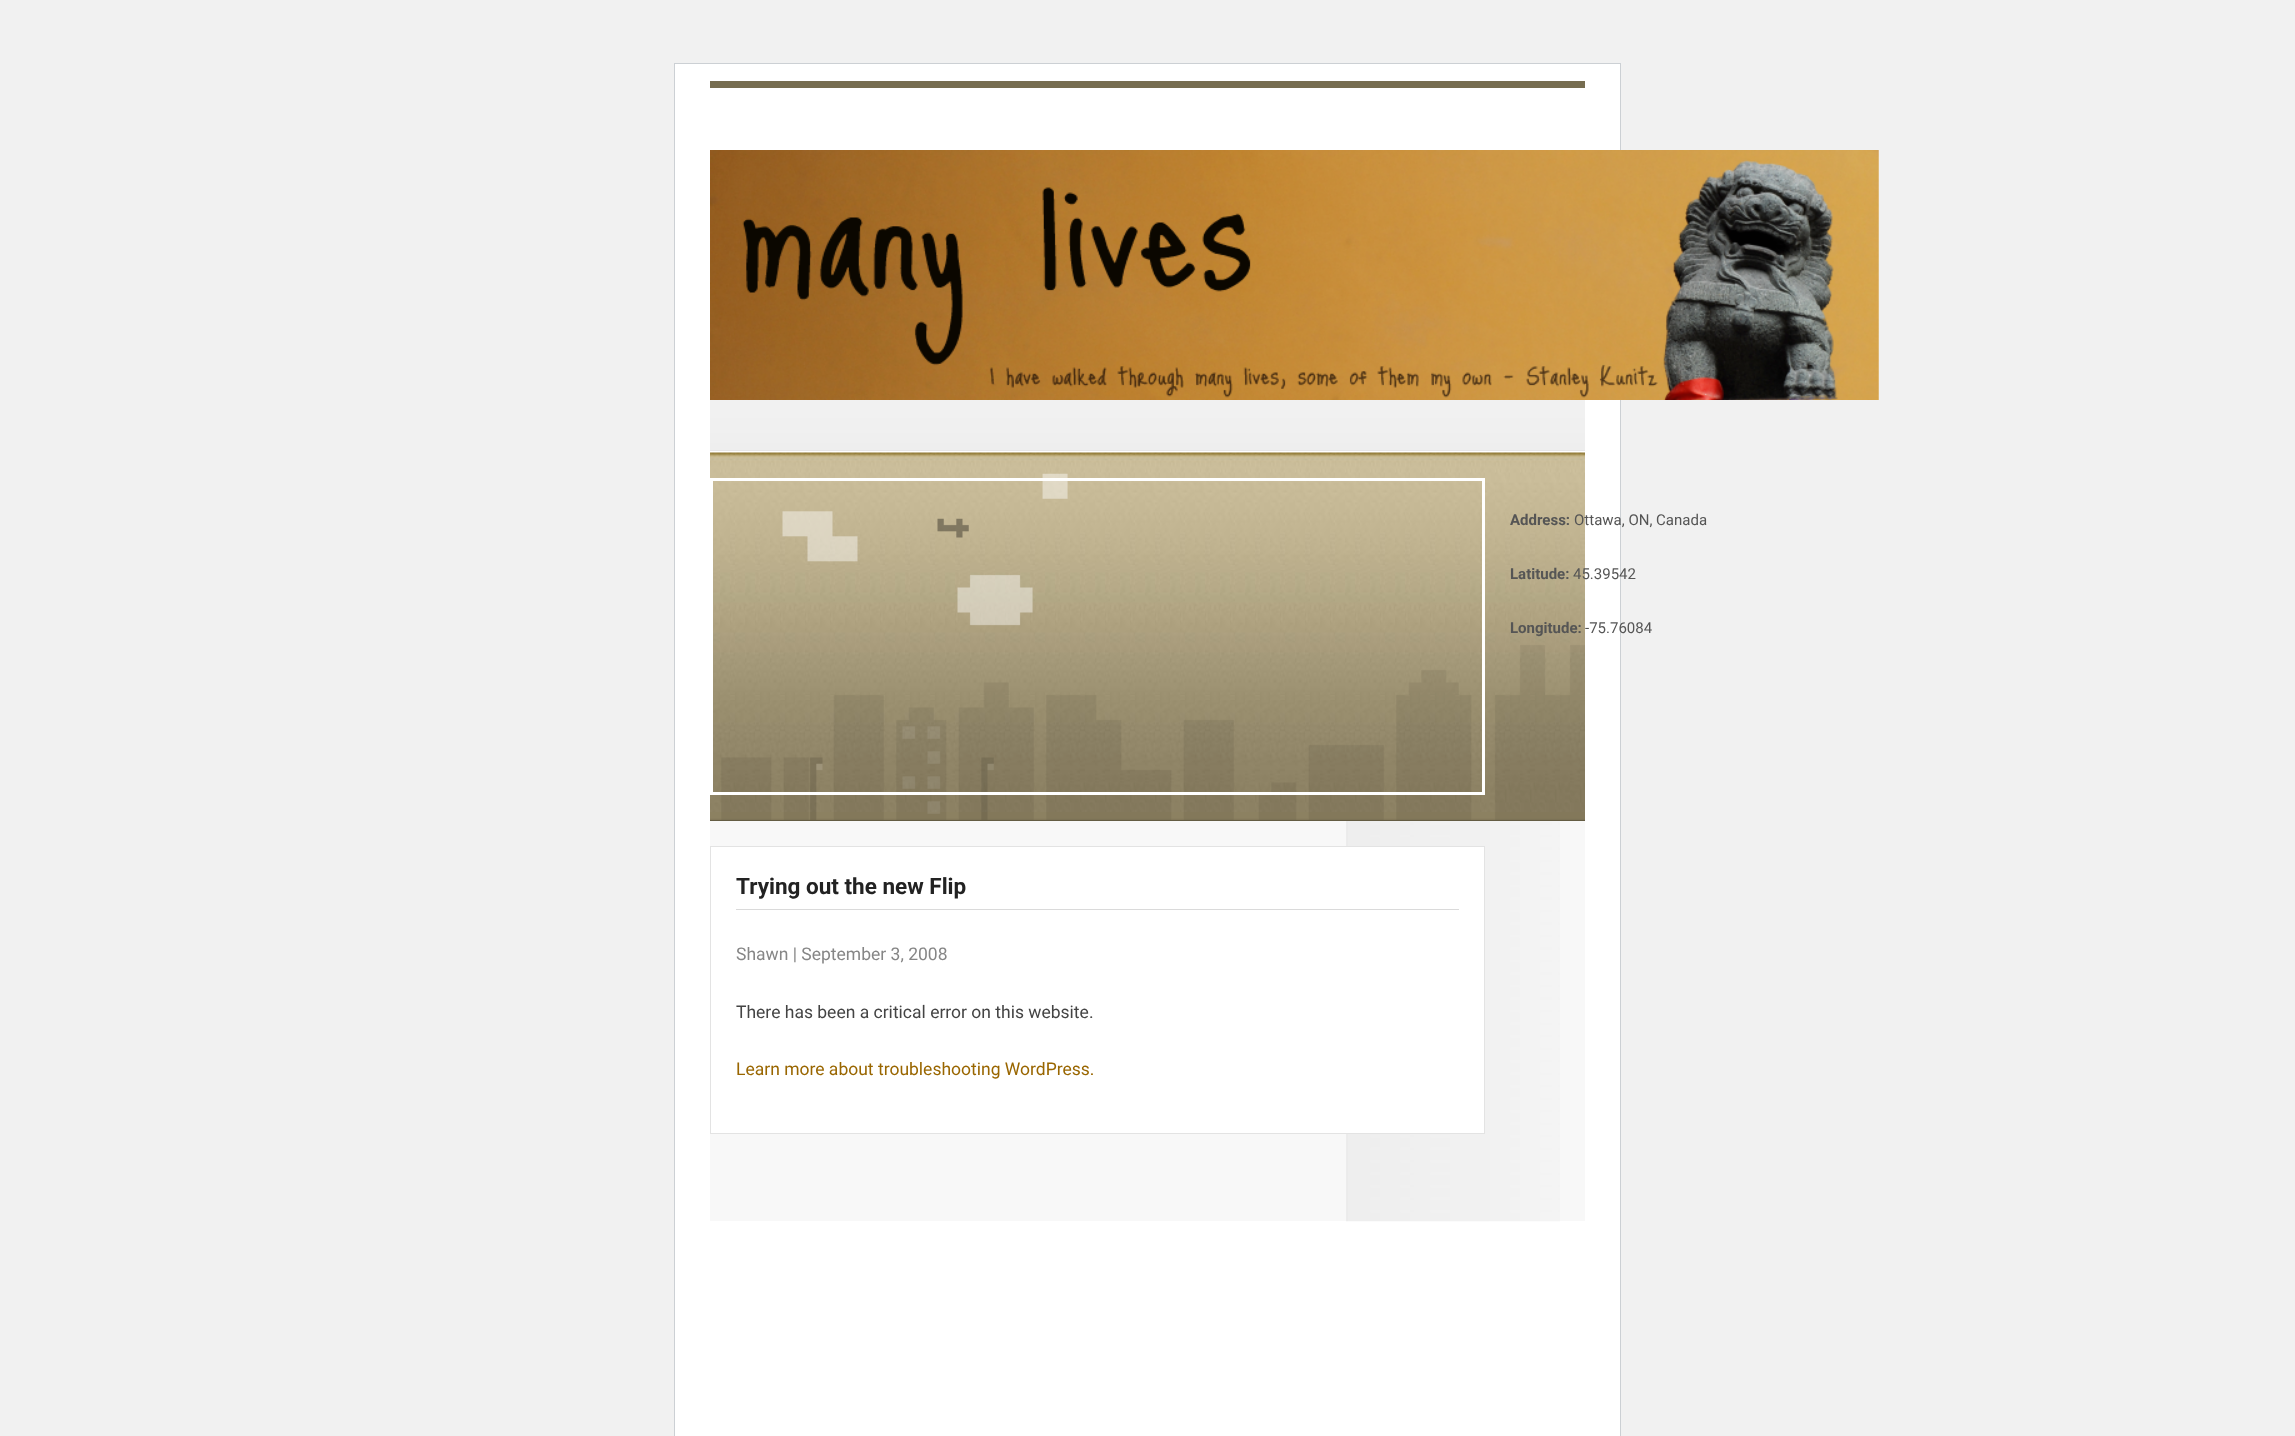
<?xml version="1.0" encoding="UTF-8"?>
<svg xmlns="http://www.w3.org/2000/svg" width="2295" height="1436">
    <rect width="100%" height="100%" fill="#F1F1F1"/>
    <rect x="674.5" y="63.5" width="946" height="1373" fill="#FFFFFF" stroke="#CCD0D4"/>
    <rect x="710" y="452" width="875" height="769" fill="#F8F8F8"/>
    <image x="1346" y="452" width="214" height="770" href="img_01.png"/>
    <rect x="710" y="81" width="875" height="7" fill="#766D50"/>
    <image x="710" y="400" width="875" height="50" href="img_02.png"/>
    <image x="710" y="150" width="1169" height="250" href="img_03.png"/>
    <image x="710" y="452" width="875" height="1" href="img_04.png"/>
    <rect x="710" y="450" width="875" height="1" fill="#E7E6E7"/>
    <rect x="710" y="812" width="875" height="8" fill="#8C8161"/>
    <image x="710" y="452" width="875" height="360" href="img_05.png"/>
    <rect x="710" y="820" width="875" height="1" fill="#645C43"/>
    <image x="710" y="473" width="875" height="347" href="img_06.png"/>
    <rect x="711.5" y="479.5" width="772" height="314" fill="none" stroke="#FFFFFF" stroke-width="3"/>
    <text x="1510" y="525" font-family="Roboto" font-size="15" font-weight="700" fill="#555555">Address:</text>
    <text x="1574" y="525" font-family="Roboto" font-size="15" fill="#555555">Ottawa, ON, Canada</text>
    <text x="1510" y="579" font-family="Roboto" font-size="15" font-weight="700" fill="#555555">Latitude:</text>
    <text x="1573" y="579" font-family="Roboto" font-size="15" fill="#555555">45.39542</text>
    <text x="1510" y="633" font-family="Roboto" font-size="15" font-weight="700" fill="#555555">Longitude:</text>
    <text x="1585" y="633" font-family="Roboto" font-size="15" fill="#555555">-75.76084</text>
    <rect x="710.5" y="846.5" width="774" height="287" fill="#FFFFFF" stroke="#E3E3E3"/>
    <rect x="736" y="909" width="723" height="1" fill="#DADADA"/>
    <text x="736" y="894" font-family="Roboto" font-size="22.5" font-weight="700" fill="#222222">Trying out the new Flip</text>
    <text x="736" y="960" font-family="Roboto" font-size="17.5" fill="#868686">Shawn | September 3, 2008</text>
    <text x="736" y="1018" font-family="Roboto" font-size="17.5" fill="#444444">There has been a critical error on this website.</text>
    <text x="736" y="1075" font-family="Roboto" font-size="17.5" fill="#996600">Learn more about troubleshooting WordPress.</text>
</svg>
